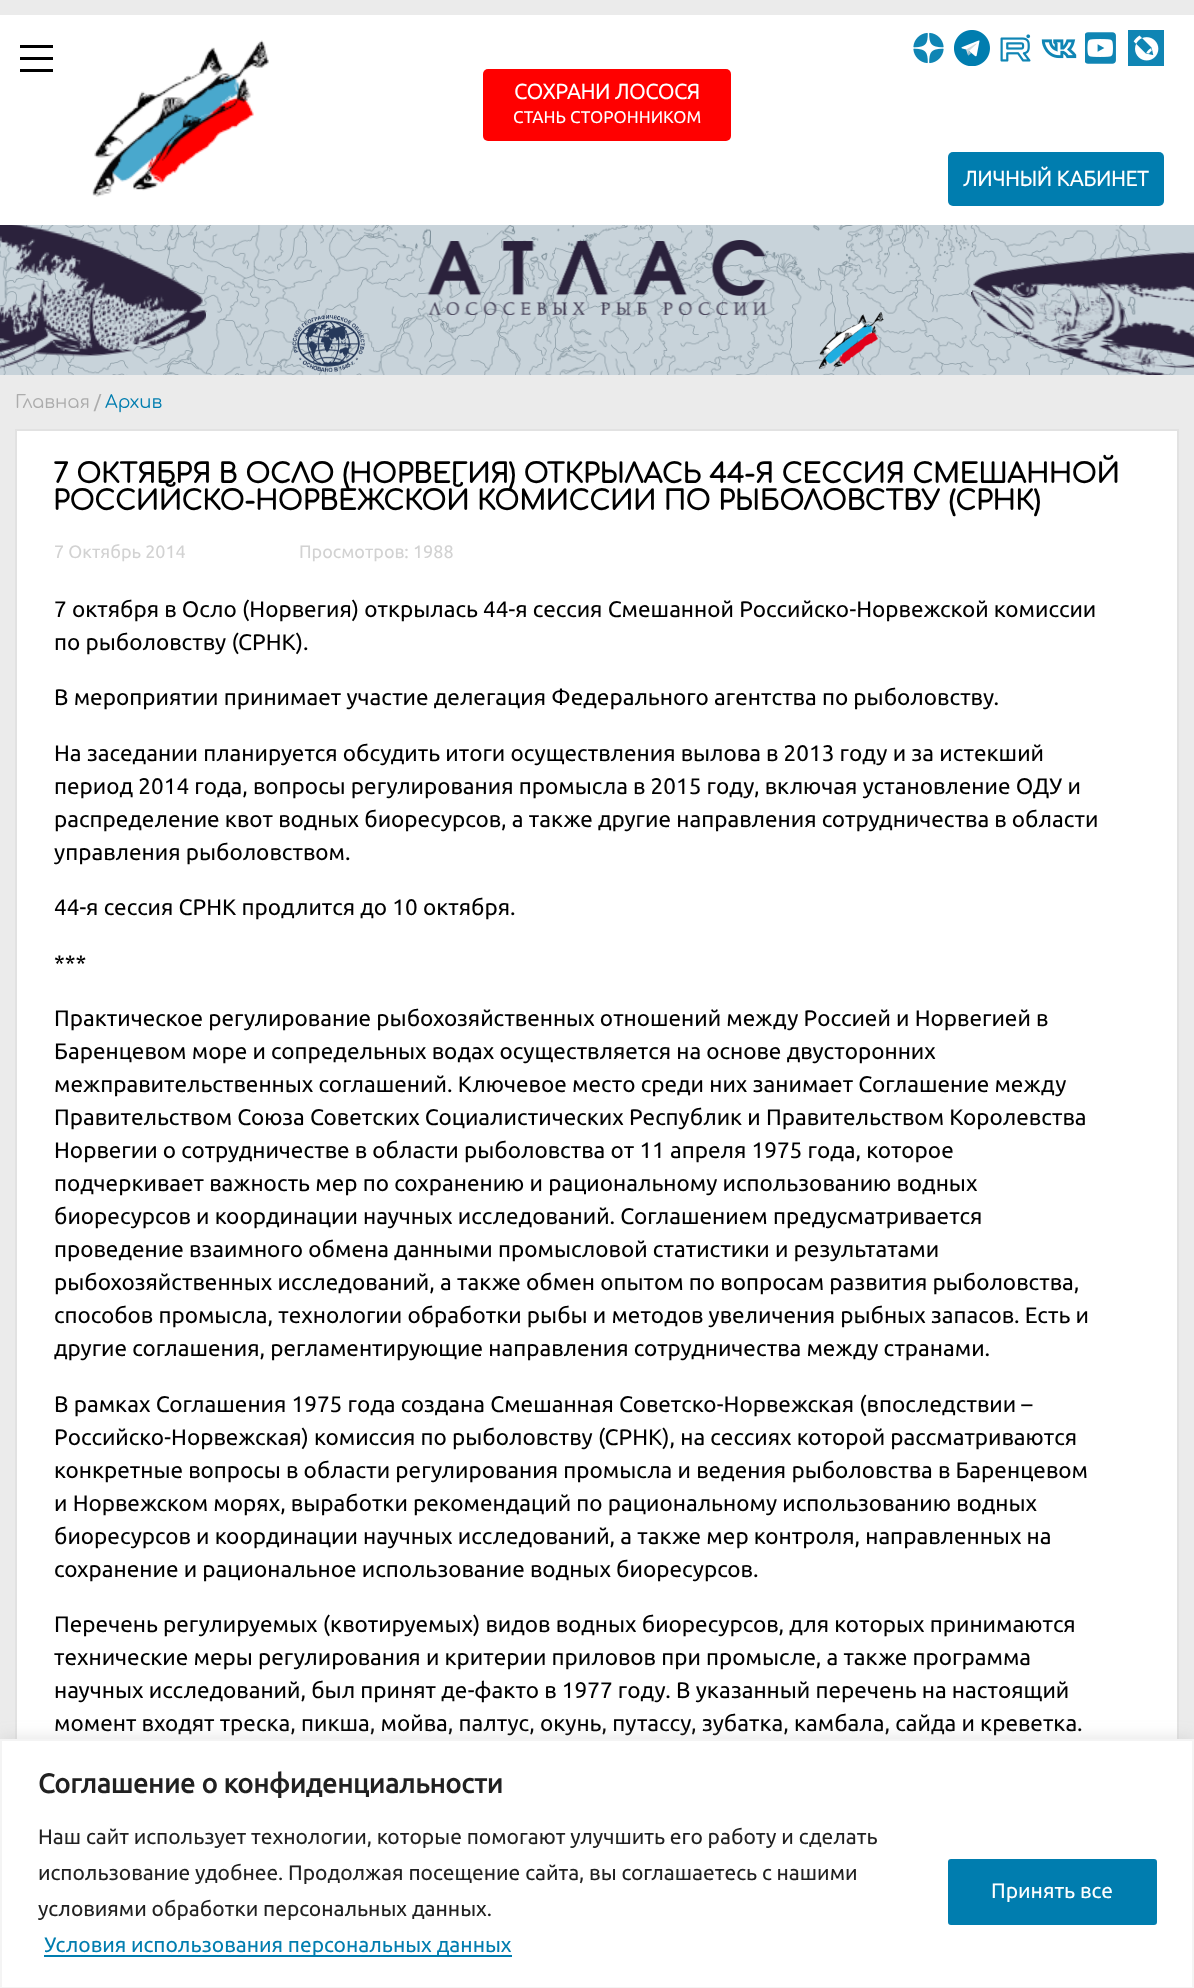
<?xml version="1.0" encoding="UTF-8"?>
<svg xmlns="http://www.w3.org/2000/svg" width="1194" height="1988">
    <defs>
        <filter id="blur1" x="-50%" y="-200%" width="200%" height="500%"><feGaussianBlur stdDeviation="7.5"/></filter>
    </defs>
    <rect width="100%" height="100%" fill="#EBEBEB"/>
    <rect x="0" y="15" width="1194" height="210" fill="#FFFFFF"/>
    <rect x="20" y="57" width="33" height="3" fill="#000000"/>
    <rect x="20" y="45" width="33" height="3" fill="#000000"/>
    <rect x="20" y="69" width="33" height="3" fill="#000000"/>
    <image x="92" y="40" width="177" height="157" href="img_01.png"/>
    <image x="913" y="32" width="31" height="32" href="img_02.png"/>
    <image x="954" y="30" width="36" height="36" href="img_03.png"/>
    <image x="1000" y="34" width="31" height="28" href="img_04.png"/>
    <image x="1041" y="39" width="36" height="20" href="img_05.png"/>
    <image x="1085" y="32" width="31" height="32" href="img_06.png"/>
    <image x="1128" y="30" width="36" height="36" href="img_07.png"/>
    <rect x="483" y="69" width="248" height="72" rx="5" fill="#FF0000"/>
    <text x="514" y="99" font-family="Ubuntu" font-size="21" font-weight="700" fill="#FFFFFF">СОХРАНИ ЛОСОСЯ</text>
    <text x="513" y="123" font-family="Ubuntu" font-size="17" fill="#FFFFFF">СТАНЬ СТОРОННИКОМ</text>
    <rect x="948" y="152" width="216" height="54" rx="5" fill="#007DAF"/>
    <text x="963" y="186" font-family="Ubuntu" font-size="21" font-weight="700" fill="#FFFFFF">ЛИЧНЫЙ КАБИНЕТ</text>
    <image x="0" y="225" width="1194" height="150" href="img_08.png"/>
    <text x="15" y="408" font-family="Comfortaa" font-size="18" fill="#ACACAC">Главная</text>
    <text x="94" y="408" font-family="Ubuntu" font-size="18" fill="#ACACAC">/</text>
    <text x="105" y="408" font-family="Comfortaa" font-size="18" fill="#007DAF">Архив</text>
    <rect x="17" y="431" width="1160" height="1308" fill="#FFFFFF"/>
    <rect x="16" y="430" width="1162" height="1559" fill="none" stroke="#E2E2E2" stroke-width="2"/>
    <text font-family="Comfortaa" font-size="27" font-weight="700" fill="#000000">
        <tspan x="53" y="483">7 ОКТЯБРЯ В ОСЛО (НОРВЕГИЯ) ОТКРЫЛАСЬ 44-Я СЕССИЯ СМЕШАННОЙ</tspan>
        <tspan x="53" y="510">РОССИЙСКО-НОРВЕЖСКОЙ КОМИССИИ ПО РЫБОЛОВСТВУ (СРНК)</tspan>
    </text>
    <text x="54" y="558" font-family="Ubuntu" font-size="18" fill="#D2D2D2">7 Октябрь 2014</text>
    <text x="299" y="558" font-family="Ubuntu" font-size="18" fill="#D2D2D2">Просмотров: 1988</text>
    <text font-family="Ubuntu" font-size="22.5" fill="#000000">
        <tspan x="54" y="617">7 октября в Осло (Норвегия) открылась 44-я сессия Смешанной Российско-Норвежской комиссии</tspan>
        <tspan x="54" y="650">по рыболовству (СРНК).</tspan>
    </text>
    <text x="54" y="705" font-family="Ubuntu" font-size="22.5" fill="#000000">В мероприятии принимает участие делегация Федерального агентства по рыболовству.</text>
    <text font-family="Ubuntu" font-size="22.5" fill="#000000">
        <tspan x="54" y="761">На заседании планируется обсудить итоги осуществления вылова в 2013 году и за истекший</tspan>
        <tspan x="54" y="794">период 2014 года, вопросы регулирования промысла в 2015 году, включая установление ОДУ и</tspan>
        <tspan x="54" y="827">распределение квот водных биоресурсов, а также другие направления сотрудничества в области</tspan>
        <tspan x="54" y="860">управления рыболовством.</tspan>
    </text>
    <text x="54" y="915" font-family="Ubuntu" font-size="22.5" fill="#000000">44-я сессия СРНК продлится до 10 октября.</text>
    <text x="54" y="971" font-family="Ubuntu" font-size="22.5" fill="#000000">***</text>
    <text font-family="Ubuntu" font-size="22.5" fill="#000000">
        <tspan x="54" y="1026">Практическое регулирование рыбохозяйственных отношений между Россией и Норвегией в</tspan>
        <tspan x="54" y="1059">Баренцевом море и сопредельных водах осуществляется на основе двусторонних</tspan>
        <tspan x="54" y="1092">межправительственных соглашений. Ключевое место среди них занимает Соглашение между</tspan>
        <tspan x="54" y="1125">Правительством Союза Советских Социалистических Республик и Правительством Королевства</tspan>
        <tspan x="54" y="1158">Норвегии о сотрудничестве в области рыболовства от 11 апреля 1975 года, которое</tspan>
        <tspan x="54" y="1191">подчеркивает важность мер по сохранению и рациональному использованию водных</tspan>
        <tspan x="54" y="1224">биоресурсов и координации научных исследований. Соглашением предусматривается</tspan>
        <tspan x="54" y="1257">проведение взаимного обмена данными промысловой статистики и результатами</tspan>
        <tspan x="54" y="1290">рыбохозяйственных исследований, а также обмен опытом по вопросам развития рыболовства,</tspan>
        <tspan x="54" y="1323">способов промысла, технологии обработки рыбы и методов увеличения рыбных запасов. Есть и</tspan>
        <tspan x="54" y="1356">другие соглашения, регламентирующие направления сотрудничества между странами.</tspan>
    </text>
    <text font-family="Ubuntu" font-size="22.5" fill="#000000">
        <tspan x="54" y="1412">В рамках Соглашения 1975 года создана Смешанная Советско-Норвежская (впоследствии –</tspan>
        <tspan x="54" y="1445">Российско-Норвежская) комиссия по рыболовству (СРНК), на сессиях которой рассматриваются</tspan>
        <tspan x="54" y="1478">конкретные вопросы в области регулирования промысла и ведения рыболовства в Баренцевом</tspan>
        <tspan x="54" y="1511">и Норвежском морях, выработки рекомендаций по рациональному использованию водных</tspan>
        <tspan x="54" y="1544">биоресурсов и координации научных исследований, а также мер контроля, направленных на</tspan>
        <tspan x="54" y="1577">сохранение и рациональное использование водных биоресурсов.</tspan>
    </text>
    <text font-family="Ubuntu" font-size="22.5" fill="#000000">
        <tspan x="54" y="1632">Перечень регулируемых (квотируемых) видов водных биоресурсов, для которых принимаются</tspan>
        <tspan x="54" y="1665">технические меры регулирования и критерии приловов при промысле, а также программа</tspan>
        <tspan x="54" y="1698">научных исследований, был принят де-факто в 1977 году. В указанный перечень на настоящий</tspan>
        <tspan x="54" y="1731">момент входят треска, пикша, мойва, палтус, окунь, путассу, зубатка, камбала, сайда и креветка.</tspan>
    </text>
    <rect x="0" y="1737" width="1194" height="251" fill="#ACABAB" fill-opacity="0.3" filter="url(#blur1)"/>
    <rect x="1" y="1740" width="1192" height="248" fill="#FFFFFF" stroke="#F4F4F4" stroke-width="2"/>
    <text x="38" y="1793" font-family="'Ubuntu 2'" font-size="27" font-weight="700" fill="#212121">Соглашение о конфиденциальности</text>
    <text font-family="Ubuntu" font-size="21" fill="#212121">
        <tspan x="38" y="1844">Наш сайт использует технологии, которые помогают улучшить его работу и сделать</tspan>
        <tspan x="38" y="1880">использование удобнее. Продолжая посещение сайта, вы соглашаетесь с нашими</tspan>
        <tspan x="38" y="1916">условиями обработки персональных данных.</tspan>
    </text>
    <rect x="44" y="1955" width="468" height="2" fill="#007DAF"/>
    <text x="44" y="1952" font-family="Ubuntu" font-size="21" fill="#007DAF">Условия использования персональных данных</text>
    <rect x="949.5" y="1860.5" width="206" height="63" rx="1.5" fill="#007DAF" stroke="#007DAF" stroke-width="3"/>
    <text x="991" y="1898" font-family="Ubuntu" font-size="21" fill="#FFFFFF">Принять все</text>
</svg>
